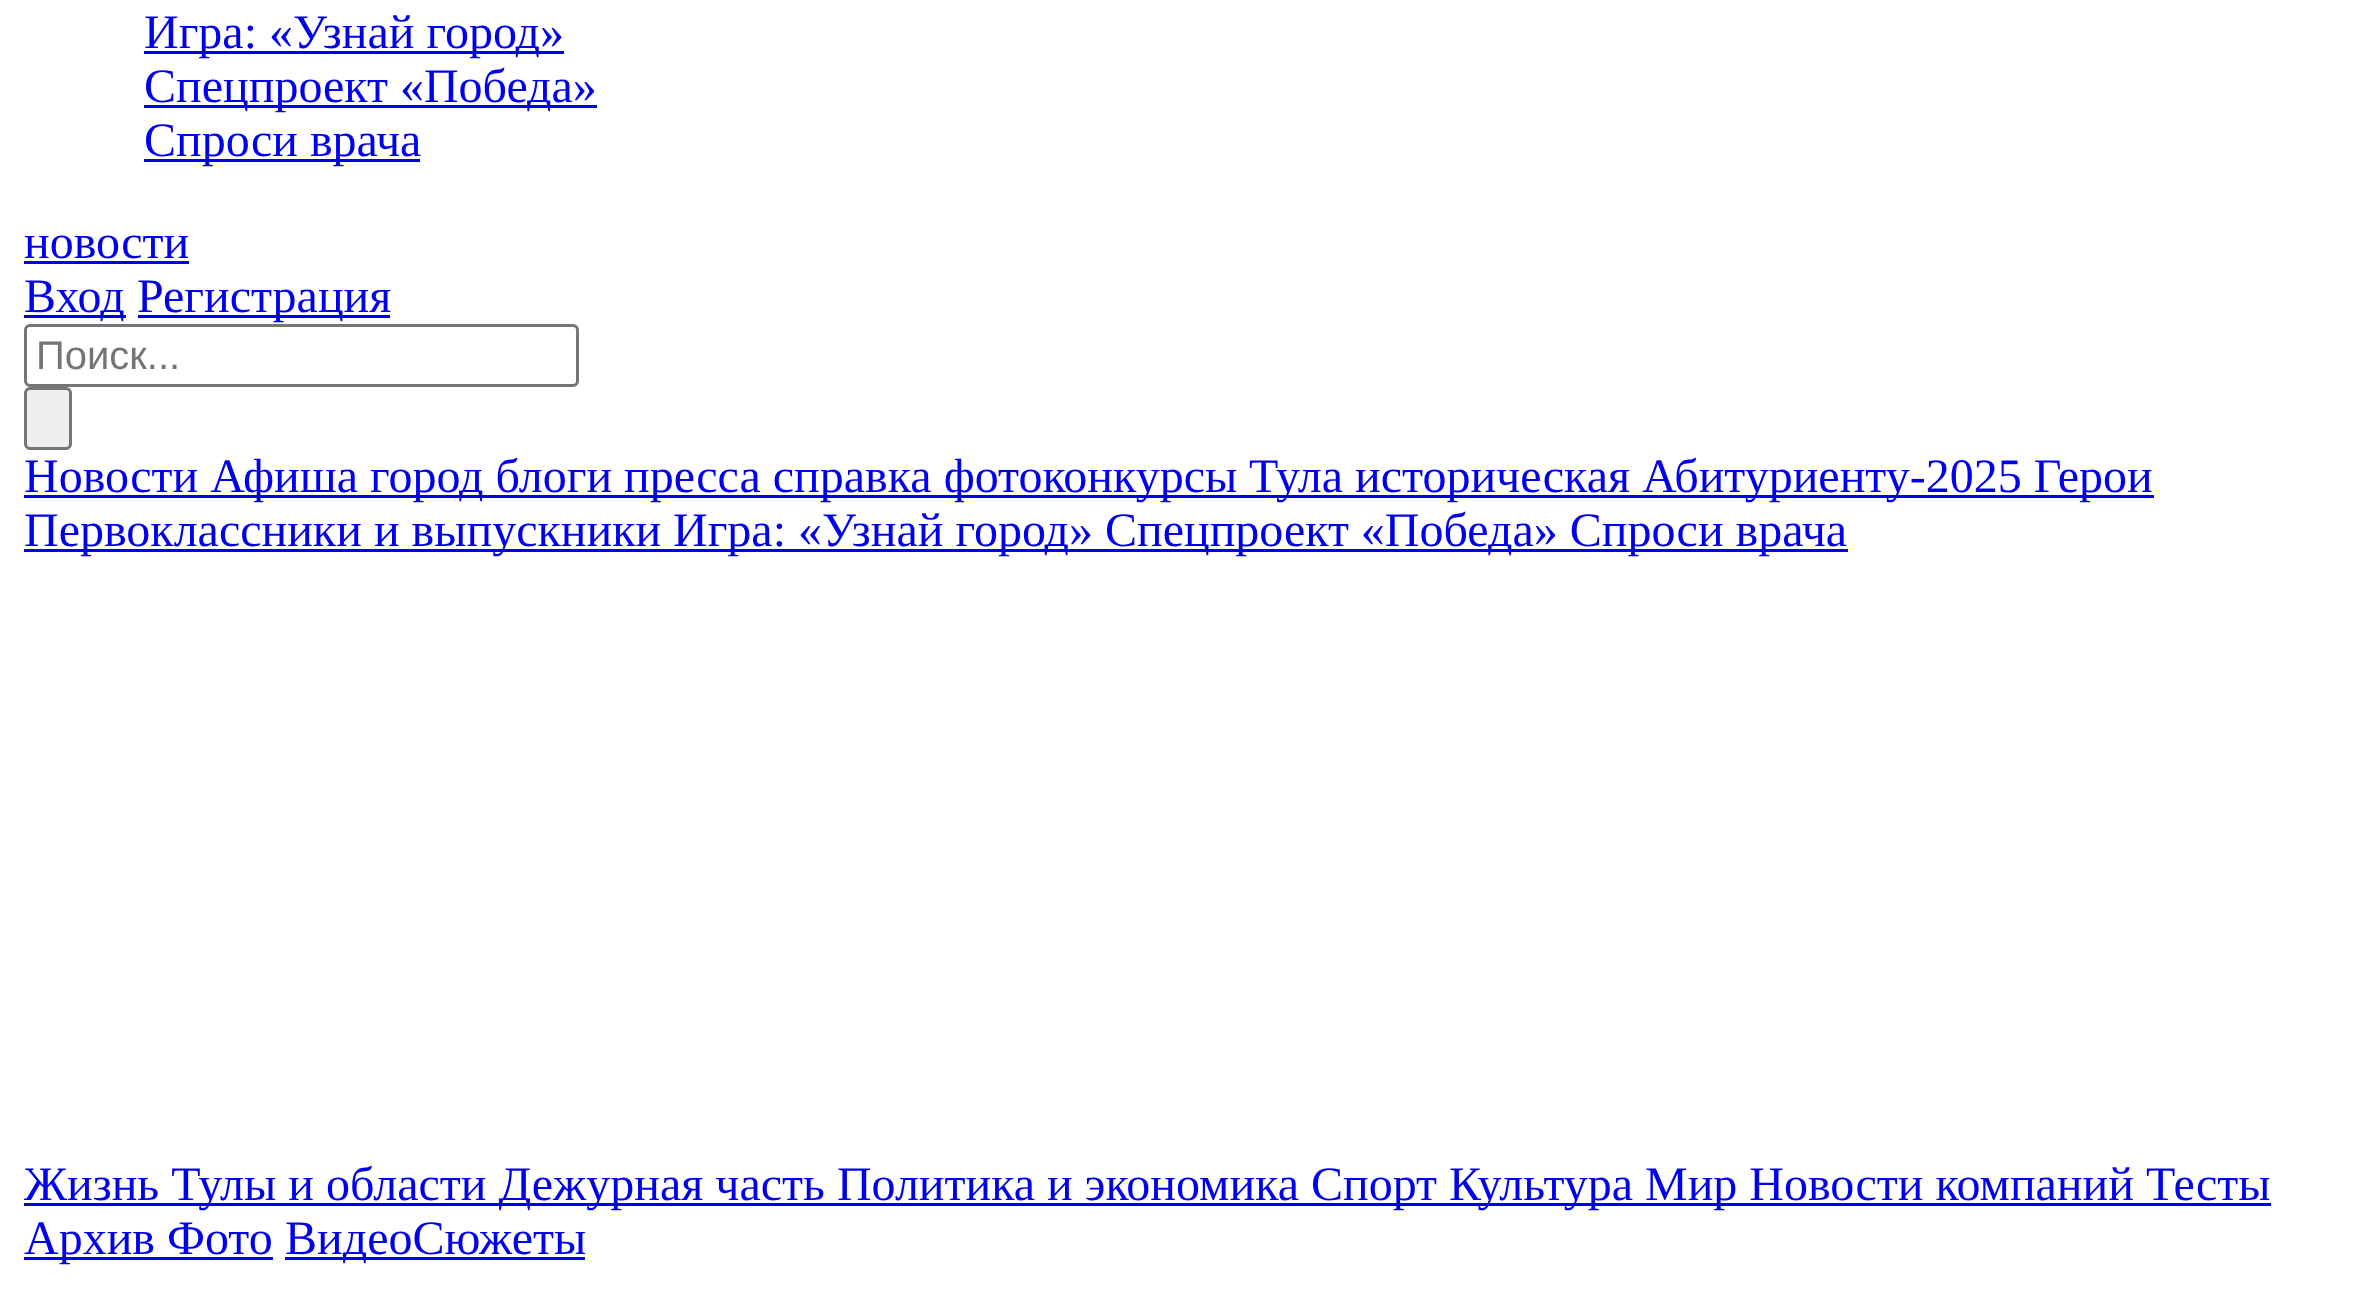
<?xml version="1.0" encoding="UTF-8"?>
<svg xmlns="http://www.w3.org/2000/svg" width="2354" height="1297">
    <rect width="100%" height="100%" fill="#FFFFFF"/>
    <rect x="144" y="51" width="420" height="3" fill="#0000EE"/>
    <text x="144" y="48" font-family="Liberation Serif" font-size="48" fill="#0000EE">Игра: «Узнай город»</text>
    <rect x="144" y="105" width="453" height="3" fill="#0000EE"/>
    <text x="144" y="102" font-family="Liberation Serif" font-size="48" fill="#0000EE">Спецпроект «Победа»</text>
    <rect x="144" y="159" width="276" height="3" fill="#0000EE"/>
    <text x="144" y="156" font-family="Liberation Serif" font-size="48" fill="#0000EE">Спроси врача</text>
    <text x="24" y="258" font-family="Liberation Serif" font-size="48" fill="#0000EE">новости</text>
    <rect x="24" y="261" width="165" height="3" fill="#0000EE"/>
    <rect x="24" y="315" width="102" height="3" fill="#0000EE"/>
    <text x="24" y="312" font-family="Liberation Serif" font-size="48" fill="#0000EE">Вход</text>
    <rect x="138" y="315" width="252" height="3" fill="#0000EE"/>
    <text x="137" y="312" font-family="Liberation Serif" font-size="48" fill="#0000EE">Регистрация</text>
    <rect x="25.5" y="325.5" width="552" height="60" rx="4.5" fill="none" stroke="#767676" stroke-width="3"/>
    <text x="36" y="369" font-family="Liberation Sans" font-size="40" fill="#757575">Поиск...</text>
    <rect x="25.5" y="388.5" width="45" height="60" rx="4.5" fill="#EFEFEF" stroke="#767676" stroke-width="3"/>
    <rect x="24" y="495" width="333" height="3" fill="#0000EE"/>
    <text x="24" y="492" font-family="Liberation Serif" font-size="48" fill="#0000EE">Новости Афиша</text>
    <rect x="357" y="495" width="879" height="3" fill="#0000EE"/>
    <text x="370" y="492" font-family="Liberation Serif" font-size="48" fill="#0000EE">город блоги пресса справка фотоконкурсы</text>
    <rect x="1236" y="495" width="393" height="3" fill="#0000EE"/>
    <text x="1249" y="492" font-family="Liberation Serif" font-size="48" fill="#0000EE">Тула историческая</text>
    <rect x="1629" y="495" width="525" height="3" fill="#0000EE"/>
    <text x="1642" y="492" font-family="Liberation Serif" font-size="48" fill="#0000EE">Абитуриенту-2025 Герои</text>
    <rect x="24" y="549" width="636" height="3" fill="#0000EE"/>
    <text x="24" y="546" font-family="Liberation Serif" font-size="48" fill="#0000EE">Первоклассники и выпускники</text>
    <rect x="660" y="549" width="1188" height="3" fill="#0000EE"/>
    <text x="673" y="546" font-family="Liberation Serif" font-size="48" fill="#0000EE">Игра: «Узнай город» Спецпроект «Победа» Спроси врача</text>
    <rect x="24" y="1203" width="1608" height="3" fill="#0000EE"/>
    <text x="24" y="1200" font-family="Liberation Serif" font-size="48" fill="#0000EE">Жизнь Тулы и области Дежурная часть Политика и экономика Спорт Культура</text>
    <rect x="1632" y="1203" width="639" height="3" fill="#0000EE"/>
    <text x="1645" y="1200" font-family="Liberation Serif" font-size="48" fill="#0000EE">Мир Новости компаний Тесты</text>
    <rect x="24" y="1257" width="249" height="3" fill="#0000EE"/>
    <text x="24" y="1254" font-family="Liberation Serif" font-size="48" fill="#0000EE">Архив Фото</text>
    <rect x="285" y="1257" width="300" height="3" fill="#0000EE"/>
    <text x="285" y="1254" font-family="Liberation Serif" font-size="48" fill="#0000EE">ВидеоСюжеты</text>
</svg>
